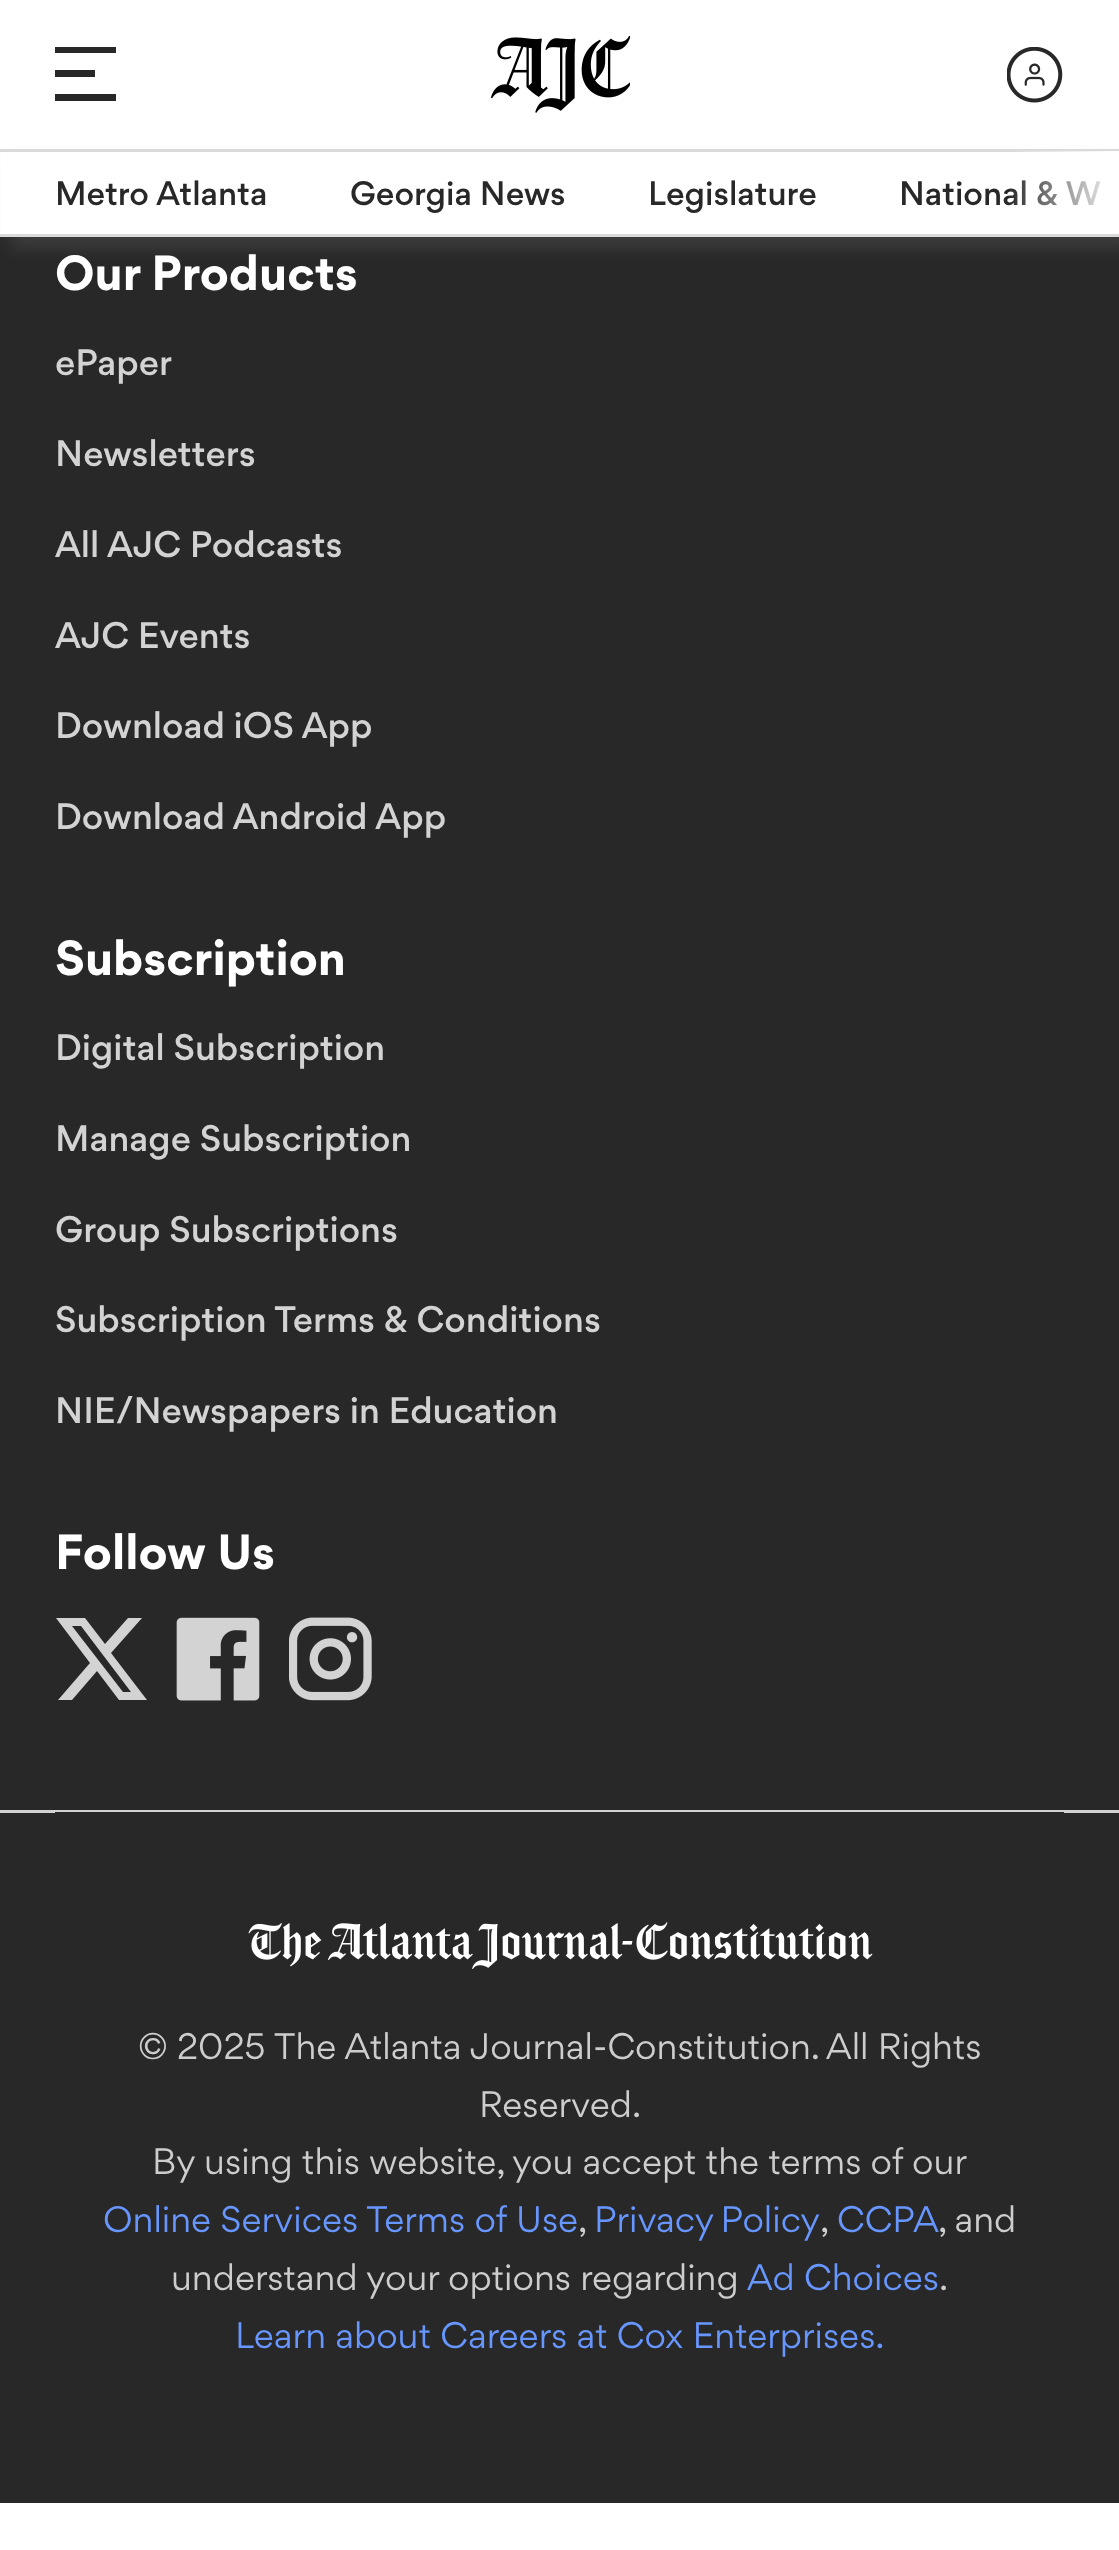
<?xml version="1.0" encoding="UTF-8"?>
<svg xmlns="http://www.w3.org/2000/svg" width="1119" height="2550">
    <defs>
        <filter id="blur1" x="-50%" y="-200%" width="200%" height="500%"><feGaussianBlur stdDeviation="8"/></filter>
        <linearGradient id="g1" gradientUnits="userSpaceOnUse" x1="1119" y1="193" x2="1007" y2="193"><stop offset="0" stop-color="#FFFFFF"/><stop offset="1" stop-color="#FFFFFF" stop-opacity="0"/></linearGradient>
    </defs>
    <rect width="100%" height="100%" fill="#FFFFFF"/>
    <path d="M 55 47 H 116 V 53 H 55 Z M 55 70 H 95 V 77 H 55 Z M 55 94 H 116 V 101 H 55 Z" fill="#282828"/>
    <image x="490" y="36" width="140" height="77" href="img_01.png"/>
    <image x="1007" y="47" width="56" height="56" href="img_02.png"/>
    <rect x="0" y="237" width="1119" height="2266" fill="#282828"/>
    <rect x="11" y="160" width="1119" height="88" fill="#858585" fill-opacity="0.22" filter="url(#blur1)"/>
    <rect x="1" y="152" width="1117" height="82" fill="#FFFFFF"/>
    <rect x="0" y="149" width="1119" height="3" fill="#DADADA"/>
    <rect x="0" y="234" width="1119" height="3" fill="#DADADA"/>
    <text x="899" y="205" font-family="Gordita" font-size="30.25" font-weight="500" fill="#282828">National &amp; W</text>
    <rect x="1009" y="151" width="110" height="83" fill="url(#g1)"/>
    <text x="55" y="205" font-family="Gordita" font-size="30.25" font-weight="500" fill="#282828">Metro Atlanta</text>
    <text x="350" y="205" font-family="Gordita" font-size="30.25" font-weight="500" fill="#282828">Georgia News</text>
    <text x="648" y="205" font-family="Gordita" font-size="30.25" font-weight="500" fill="#282828">Legislature</text>
    <text x="55" y="290" font-family="Gordita" font-size="44" font-weight="700" fill="#FFFFFF">Our Products</text>
    <text x="55" y="375" font-family="Gordita" font-size="33" font-weight="500" fill="#D3D3D3">ePaper</text>
    <text x="55" y="466" font-family="Gordita" font-size="33" font-weight="500" fill="#D3D3D3">Newsletters</text>
    <text x="55" y="557" font-family="Gordita" font-size="33" font-weight="500" fill="#D3D3D3">All AJC Podcasts</text>
    <text x="55" y="648" font-family="Gordita" font-size="33" font-weight="500" fill="#D3D3D3">AJC Events</text>
    <text x="55" y="738" font-family="Gordita" font-size="33" font-weight="500" fill="#D3D3D3">Download iOS App</text>
    <text x="55" y="829" font-family="Gordita" font-size="33" font-weight="500" fill="#D3D3D3">Download Android App</text>
    <text x="55" y="975" font-family="Gordita" font-size="44" font-weight="700" fill="#FFFFFF">Subscription</text>
    <text x="55" y="1060" font-family="Gordita" font-size="33" font-weight="500" fill="#D3D3D3">Digital Subscription</text>
    <text x="55" y="1151" font-family="Gordita" font-size="33" font-weight="500" fill="#D3D3D3">Manage Subscription</text>
    <text x="55" y="1242" font-family="Gordita" font-size="33" font-weight="500" fill="#D3D3D3">Group Subscriptions</text>
    <text x="55" y="1332" font-family="Gordita" font-size="33" font-weight="500" fill="#D3D3D3">Subscription Terms &amp; Conditions</text>
    <text x="55" y="1423" font-family="Gordita" font-size="33" font-weight="500" fill="#D3D3D3">NIE/Newspapers in Education</text>
    <text x="55" y="1569" font-family="Gordita" font-size="44" font-weight="700" fill="#FFFFFF">Follow Us</text>
    <path d="M 128 1618 H 142 L 111 1653 L 147 1700 H 119 L 97 1671 L 72 1700 H 58 L 90 1663 L 56 1618 H 85 L 105 1644 Z M 123 1692 H 131 L 81 1626 H 72 Z" fill="#D3D3D3"/>
    <image x="176" y="1617" width="84" height="84" href="img_03.png"/>
    <image x="289" y="1617" width="83" height="84" href="img_04.png"/>
    <rect x="0" y="1810" width="1119" height="3" fill="#D3D3D3"/>
    <rect x="55" y="1812" width="1009" height="1" fill="#282828"/>
    <image x="248" y="1922" width="625" height="47" href="img_05.png"/>
    <text x="138" y="2059" font-family="Gordita" font-size="33" fill="#CDCDCD">© 2025</text>
    <text x="274" y="2059" font-family="Gordita" font-size="33" fill="#CDCDCD">The Atlanta Journal-Constitution. All Rights</text>
    <text x="479" y="2117" font-family="Gordita" font-size="33" fill="#CDCDCD">Reserved.</text>
    <text x="152" y="2174" font-family="Gordita" font-size="33" fill="#CDCDCD">By using this website, you accept the terms of our</text>
    <text x="103" y="2232" font-family="Gordita" font-size="33" fill="#6796FF">Online Services Terms of Use</text>
    <text x="578" y="2232" font-family="Gordita" font-size="33" fill="#CDCDCD">,</text>
    <text x="594" y="2232" word-spacing="-2" font-family="Gordita" font-size="33" fill="#6796FF">Privacy Policy</text>
    <text x="820" y="2232" font-family="Gordita" font-size="33" fill="#CDCDCD">,</text>
    <text x="837" y="2232" font-family="Gordita" font-size="33" fill="#6796FF">CCPA</text>
    <text x="938" y="2232" font-family="Gordita" font-size="33" fill="#CDCDCD">, and</text>
    <text x="171" y="2290" font-family="Gordita" font-size="33" fill="#CDCDCD">understand your options regarding</text>
    <text x="747" y="2290" font-family="Gordita" font-size="33" fill="#6796FF">Ad Choices</text>
    <text x="939" y="2290" font-family="Gordita" font-size="33" fill="#CDCDCD">.</text>
    <text x="235" y="2348" font-family="Gordita" font-size="33" fill="#6796FF">Learn about Careers at Cox Enterprises.</text>
</svg>
